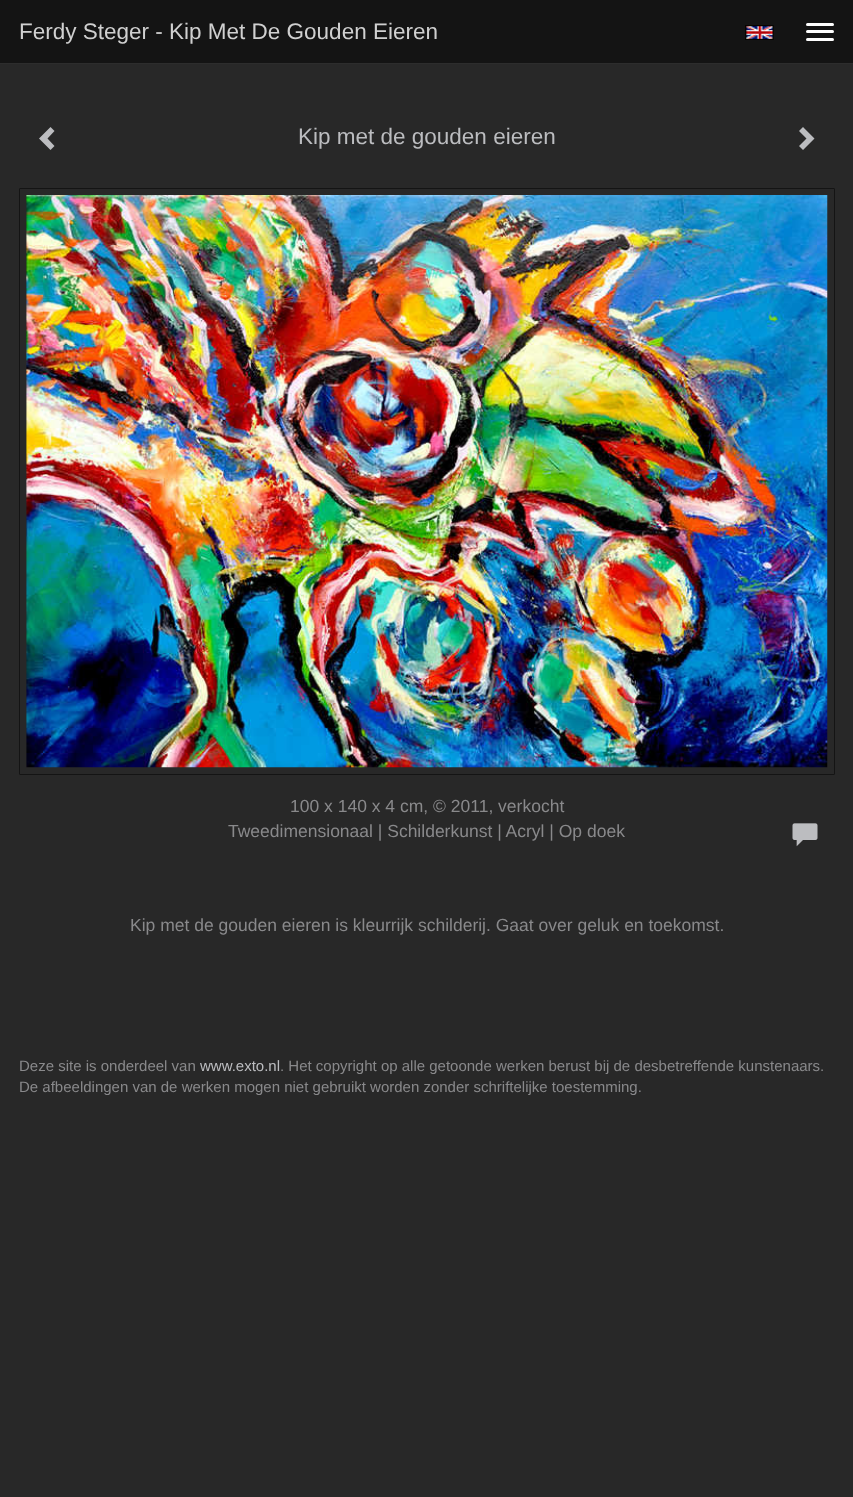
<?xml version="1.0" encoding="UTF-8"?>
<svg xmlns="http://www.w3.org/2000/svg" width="853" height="1497">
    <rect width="100%" height="100%" fill="#282828"/>
    <rect x="0" y="0" width="853" height="63" fill="#141414"/>
    <rect x="0" y="63" width="853" height="1" fill="#2D2D2D"/>
    <text x="19" y="39" font-family="Liberation Sans" font-size="22.5" fill="#D0D0D0">Ferdy Steger - Kip Met De Gouden Eieren</text>
    <rect x="806" y="23" width="28" height="3" rx="1.5" fill="#FFFFFF"/>
    <rect x="806" y="30" width="28" height="3" rx="1.5" fill="#FFFFFF"/>
    <rect x="806" y="38" width="28" height="3" rx="1.5" fill="#FFFFFF"/>
    <image x="745" y="25" width="29" height="15" href="img_01.png"/>
    <path d="M 54.5 131 L 47.5 138.5 L 54.5 146 L 50.5 150 L 39 138.5 L 50.5 127 Z" fill="#BCBDC0"/>
    <text x="298" y="144" font-family="Liberation Sans" font-size="22.5" fill="#BCBDC0">Kip met de gouden eieren</text>
    <path d="M 814.5 138.5 L 803 150 L 799 146 L 806.5 138.5 L 799 131 L 803 127 Z" fill="#BCBDC0"/>
    <rect x="19.5" y="188.5" width="815" height="586" rx="0.5" fill="none" stroke="#141414"/>
    <image x="26" y="195" width="802" height="573" href="img_02.png"/>
    <text x="290" y="812" font-family="Liberation Sans" font-size="17.5" fill="#89898B">100 x 140 x 4 cm, © 2011, verkocht</text>
    <text x="228" y="837" font-family="Liberation Sans" font-size="17.5" fill="#89898B">Tweedimensionaal | Schilderkunst | Acryl | Op doek</text>
    <image x="792" y="823" width="26" height="24" href="img_03.png"/>
    <text x="130" y="931" font-family="Liberation Sans" font-size="17.5" fill="#89898B">Kip met de gouden eieren is kleurrijk schilderij. Gaat over geluk en toekomst.</text>
    <text x="19" y="1071" font-family="Liberation Sans" font-size="15" fill="#89898B">Deze site is onderdeel van</text>
    <text x="200" y="1071" font-family="Liberation Sans" font-size="15" fill="#BCBDC0">www.exto.nl</text>
    <text x="280" y="1071" font-family="Liberation Sans" font-size="15" fill="#89898B">. Het copyright op alle getoonde werken berust bij de desbetreffende kunstenaars.</text>
    <text x="19" y="1092" font-family="Liberation Sans" font-size="15" fill="#89898B">De afbeeldingen van de werken mogen niet gebruikt worden zonder schriftelijke toestemming.</text>
</svg>
